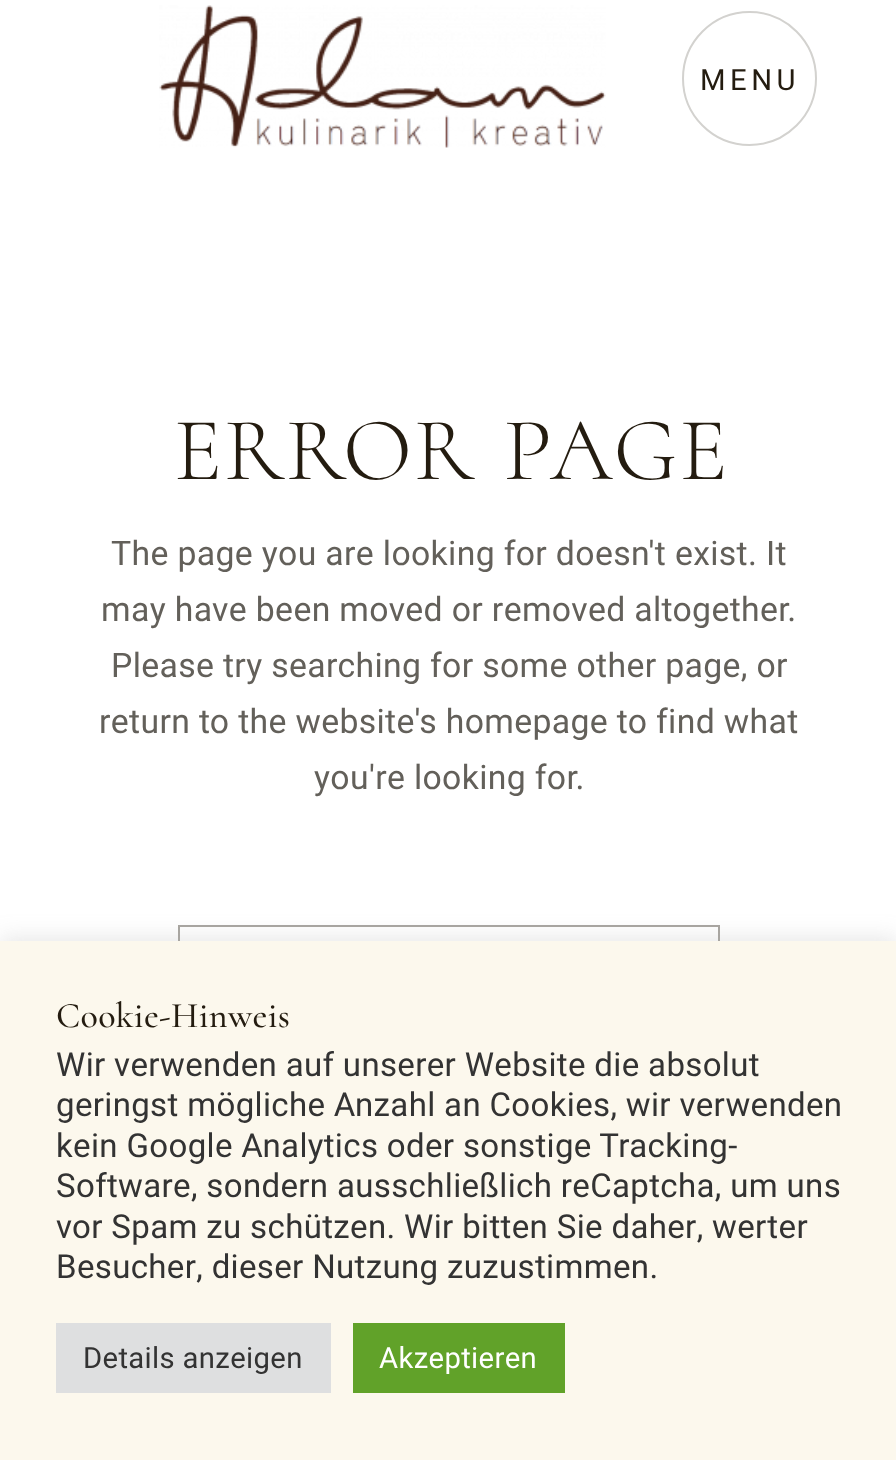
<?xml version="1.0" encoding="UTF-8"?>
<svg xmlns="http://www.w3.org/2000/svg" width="896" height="1460">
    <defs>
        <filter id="blur1" x="-50%" y="-200%" width="200%" height="500%"><feGaussianBlur stdDeviation="11"/></filter>
    </defs>
    <rect width="100%" height="100%" fill="#FFFFFF"/>
    <image x="159" y="5" width="447" height="143" href="img_01.png"/>
    <circle cx="749.5" cy="78.5" r="66.5" fill="none" stroke="#D3D2CF" stroke-width="2"/>
    <text x="700" y="90" font-family="Heebo" font-size="29.25" letter-spacing="4.5" fill="#241C10">MENU</text>
    <text x="174" y="479" word-spacing="5" font-family="Cormorant" font-size="90" font-weight="300" letter-spacing="1.75" fill="#241C10">ERROR PAGE</text>
    <text x="111" y="565" font-family="Heebo" font-size="33.75" letter-spacing="0.35" fill="#63605A">The page you are looking for doesn't exist. It</text>
    <text x="101" y="621" font-family="Heebo" font-size="33.75" letter-spacing="0.35" fill="#63605A">may have been moved or removed altogether.</text>
    <text x="111" y="677" font-family="Heebo" font-size="33.75" letter-spacing="0.35" fill="#63605A">Please try searching for some other page, or</text>
    <text x="99" y="733" font-family="Heebo" font-size="33.75" letter-spacing="0.35" fill="#63605A">return to the website's homepage to find what</text>
    <text x="314" y="789" font-family="Heebo" font-size="33.75" letter-spacing="0.35" fill="#63605A">you're looking for.</text>
    <rect x="179" y="926" width="540" height="117" fill="none" stroke="#A7A49F" stroke-width="2"/>
    <rect x="0" y="938" width="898" height="520" fill="#ACABAB" fill-opacity="0.3" filter="url(#blur1)"/>
    <rect x="0" y="941" width="896" height="519" fill="#FCF8ED"/>
    <text x="56" y="1027" font-family="Cormorant" font-size="36" font-weight="500" letter-spacing="0.35" fill="#241C10">Cookie-Hinweis</text>
    <text font-family="Heebo" font-size="33" letter-spacing="0.35" fill="#333333">
        <tspan x="56" y="1076">Wir verwenden auf unserer Website die absolut</tspan>
        <tspan x="56" y="1116">geringst mögliche Anzahl an Cookies, wir verwenden</tspan>
        <tspan x="56" y="1157">kein Google Analytics oder sonstige Tracking-</tspan>
        <tspan x="56" y="1197">Software, sondern ausschließlich reCaptcha, um uns</tspan>
        <tspan x="56" y="1238">vor Spam zu schützen. Wir bitten Sie daher, werter</tspan>
        <tspan x="56" y="1278">Besucher, dieser Nutzung zuzustimmen.</tspan>
    </text>
    <rect x="56" y="1323" width="275" height="70" fill="#DEDFE0"/>
    <text x="83" y="1368" font-family="Heebo" font-size="29.25" letter-spacing="0.35" fill="#333333">Details anzeigen</text>
    <rect x="353" y="1323" width="212" height="70" fill="#61A229"/>
    <text x="379" y="1368" font-family="Heebo" font-size="29.25" letter-spacing="0.35" fill="#FFFFFF">Akzeptieren</text>
</svg>
